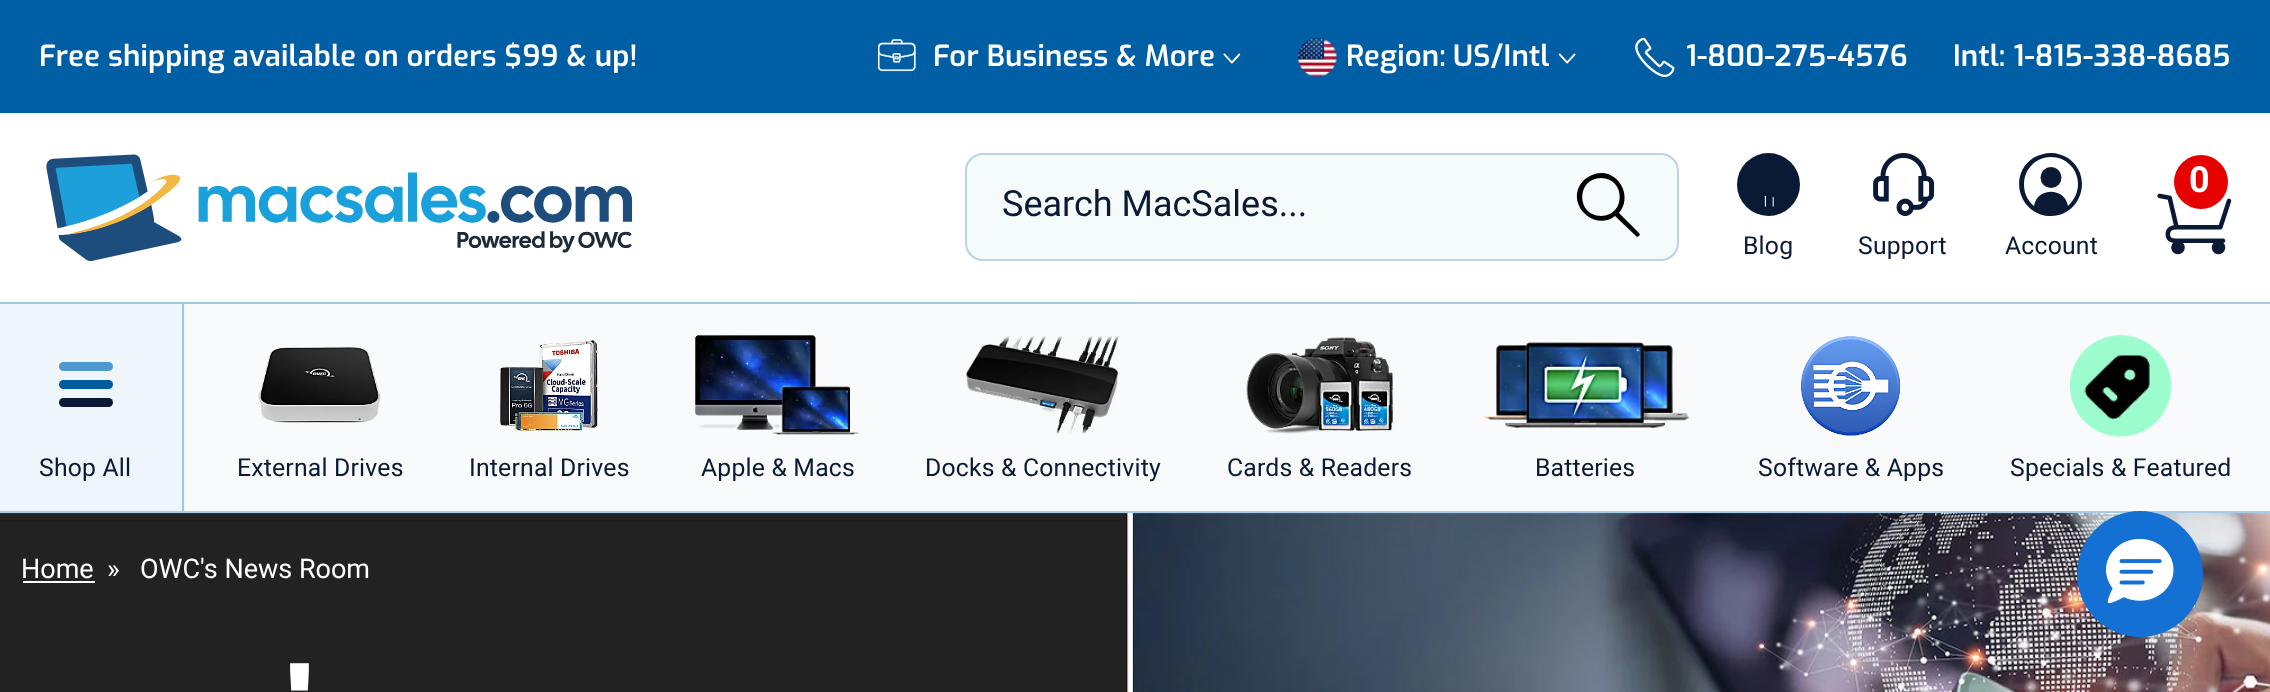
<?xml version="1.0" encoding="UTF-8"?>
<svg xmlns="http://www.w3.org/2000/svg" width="2270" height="692">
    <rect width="100%" height="100%" fill="#FFFFFF"/>
    <rect x="0" y="0" width="2270" height="113" fill="#005EA4"/>
    <text x="39" y="66" font-family="Exo" font-size="29.25" font-weight="600" letter-spacing="0.2" fill="#FFFFFF">Free shipping available on orders $99 &amp; up!</text>
    <image x="878" y="39" width="38" height="33" href="img_01.png"/>
    <text x="933" y="66" font-family="Exo" font-size="29.25" font-weight="600" letter-spacing="0.2" fill="#FFFFFF">For Business &amp; More</text>
    <image x="1223" y="53" width="18" height="11" href="img_02.png"/>
    <image x="1298" y="38" width="39" height="39" href="img_03.png"/>
    <text x="1346" y="66" font-family="Exo" font-size="29.25" font-weight="600" letter-spacing="0.2" fill="#FFFFFF">Region:</text>
    <text x="1453" y="66" font-family="Exo" font-size="29.25" font-weight="600" letter-spacing="0.2" fill="#FFFFFF">US/Intl</text>
    <image x="1558" y="53" width="18" height="11" href="img_04.png"/>
    <image x="1635" y="37" width="40" height="40" href="img_05.png"/>
    <text x="1686" y="66" font-family="Exo" font-size="29.25" font-weight="600" letter-spacing="0.2" fill="#FFFFFF">1-800-275-4576</text>
    <text x="1953" y="66" font-family="Exo" font-size="29.25" font-weight="600" letter-spacing="0.2" fill="#FFFFFF">Intl: 1-815-338-8685</text>
    <rect x="0" y="511" width="2270" height="2" fill="#A7CCE8"/>
    <image x="46" y="154" width="587" height="107" href="img_06.png"/>
    <rect x="965" y="153" width="714" height="108" rx="18" fill="#F5FAFB"/>
    <rect x="966" y="154" width="712" height="106" rx="17" fill="none" stroke="#005C9F" stroke-opacity="0.24" stroke-width="2"/>
    <text x="1002" y="216" font-family="Roboto" font-size="36" fill="#0A1934">Search MacSales...</text>
    <path d="M 1601 173 C 1621 173 1632 198 1619 213 L 1639 233 C 1640 234 1640 235 1639 236 C 1638 237 1636 237 1636 236 L 1615 216 C 1593 233 1563 201 1584 180 C 1589 176 1595 173 1601 173 Z M 1601 178 C 1576 178 1576 216 1601 216 C 1626 216 1626 178 1601 178 Z" fill="#000000"/>
    <circle cx="2201" cy="182" r="27" fill="#E60000"/>
    <text x="2189" y="192" font-family="Roboto" font-size="36" font-weight="700" fill="#FFFFFF">0</text>
    <image x="2157" y="193" width="75" height="62" href="img_07.png"/>
    <image x="1737" y="153" width="63" height="63" href="img_08.png"/>
    <text x="1743" y="254" font-family="Roboto" font-size="24.75" letter-spacing="0.2" fill="#0A1934">Blog</text>
    <image x="1873" y="153" width="62" height="63" href="img_09.png"/>
    <text x="1858" y="254" font-family="Roboto" font-size="24.75" letter-spacing="0.2" fill="#0A1934">Support</text>
    <circle cx="2051" cy="177.5" r="10.5" fill="#0A1934"/>
    <path d="M 2051 153 C 2045 153 2038 155 2033 158 C 2007 176 2020 216 2051 216 C 2081 216 2094 176 2068 158 C 2063 155 2057 153 2051 153 Z M 2078 184 C 2078 193 2074 200 2068 206 C 2065 187 2037 187 2034 206 C 2027 200 2024 193 2024 184 C 2024 169 2036 157 2051 157 C 2066 157 2078 169 2078 184 Z" fill="#0A1934"/>
    <text x="2005" y="254" font-family="Roboto" font-size="24.75" letter-spacing="0.2" fill="#0A1934">Account</text>
    <rect x="0" y="304" width="185" height="207" fill="#EEF5FB"/>
    <rect x="0" y="302" width="1136" height="2" fill="#9FC7E6"/>
    <rect x="185" y="304" width="2085" height="207" fill="#F8FAFB"/>
    <rect x="1136" y="302" width="1134" height="2" fill="#A4C9E6"/>
    <rect x="182" y="304" width="2" height="207" fill="#9FC7E6"/>
    <rect x="59" y="362" width="54" height="9" rx="4.5" fill="#4F98D0"/>
    <rect x="59" y="380" width="54" height="9" rx="4.5" fill="#005C9F"/>
    <rect x="59" y="398" width="54" height="9" rx="4.5" fill="#0A1934"/>
    <text x="39" y="476" font-family="Roboto" font-size="24.75" letter-spacing="0.2" fill="#0A1934">Shop All</text>
    <image x="258" y="347" width="123" height="76" href="img_10.png"/>
    <text x="237" y="476" font-family="Roboto" font-size="24.75" letter-spacing="0.2" fill="#0A1934">External Drives</text>
    <image x="500" y="340" width="98" height="91" href="img_11.png"/>
    <text x="469" y="476" font-family="Roboto" font-size="24.75" letter-spacing="0.2" fill="#0A1934">Internal Drives</text>
    <image x="695" y="335" width="164" height="100" href="img_12.png"/>
    <text x="701" y="476" font-family="Roboto" font-size="24.75" letter-spacing="0.2" fill="#0A1934">Apple &amp; Macs</text>
    <image x="966" y="336" width="153" height="98" href="img_13.png"/>
    <text x="925" y="476" font-family="Roboto" font-size="24.75" letter-spacing="0.2" fill="#0A1934">Docks &amp; Connectivity</text>
    <image x="1246" y="337" width="149" height="97" href="img_14.png"/>
    <text x="1227" y="476" font-family="Roboto" font-size="24.75" letter-spacing="0.2" fill="#0A1934">Cards &amp; Readers</text>
    <image x="1481" y="342" width="209" height="87" href="img_15.png"/>
    <text x="1535" y="476" font-family="Roboto" font-size="24.75" letter-spacing="0.2" fill="#0A1934">Batteries</text>
    <image x="1800" y="336" width="101" height="100" href="img_16.png"/>
    <text x="1758" y="476" font-family="Roboto" font-size="24.75" letter-spacing="0.2" fill="#0A1934">Software &amp; Apps</text>
    <image x="2070" y="335" width="102" height="102" href="img_17.png"/>
    <text x="2010" y="476" font-family="Roboto" font-size="24.75" letter-spacing="0.2" fill="#0A1934">Specials &amp; Featured</text>
    <image x="0" y="513" width="2270" height="179" href="img_18.png"/>
    <text x="21" y="578" font-family="Roboto" font-size="27" fill="#FFFFFF">Home</text>
    <rect x="23" y="581" width="72" height="2" fill="#FFFFFF"/>
    <text x="107" y="578" font-family="Roboto" font-size="27" fill="#FFFFFF">»</text>
    <text x="140" y="578" font-family="Roboto" font-size="27" fill="#FFFFFF">OWC's News Room</text>
    <text x="287" y="740" font-family="Exo" font-size="101" font-weight="900" fill="#FFFFFF">'</text>
    <circle cx="2140" cy="574" r="63" fill="#1470D2"/>
    <image x="2106" y="538" width="68" height="66" href="img_19.png"/>
</svg>
